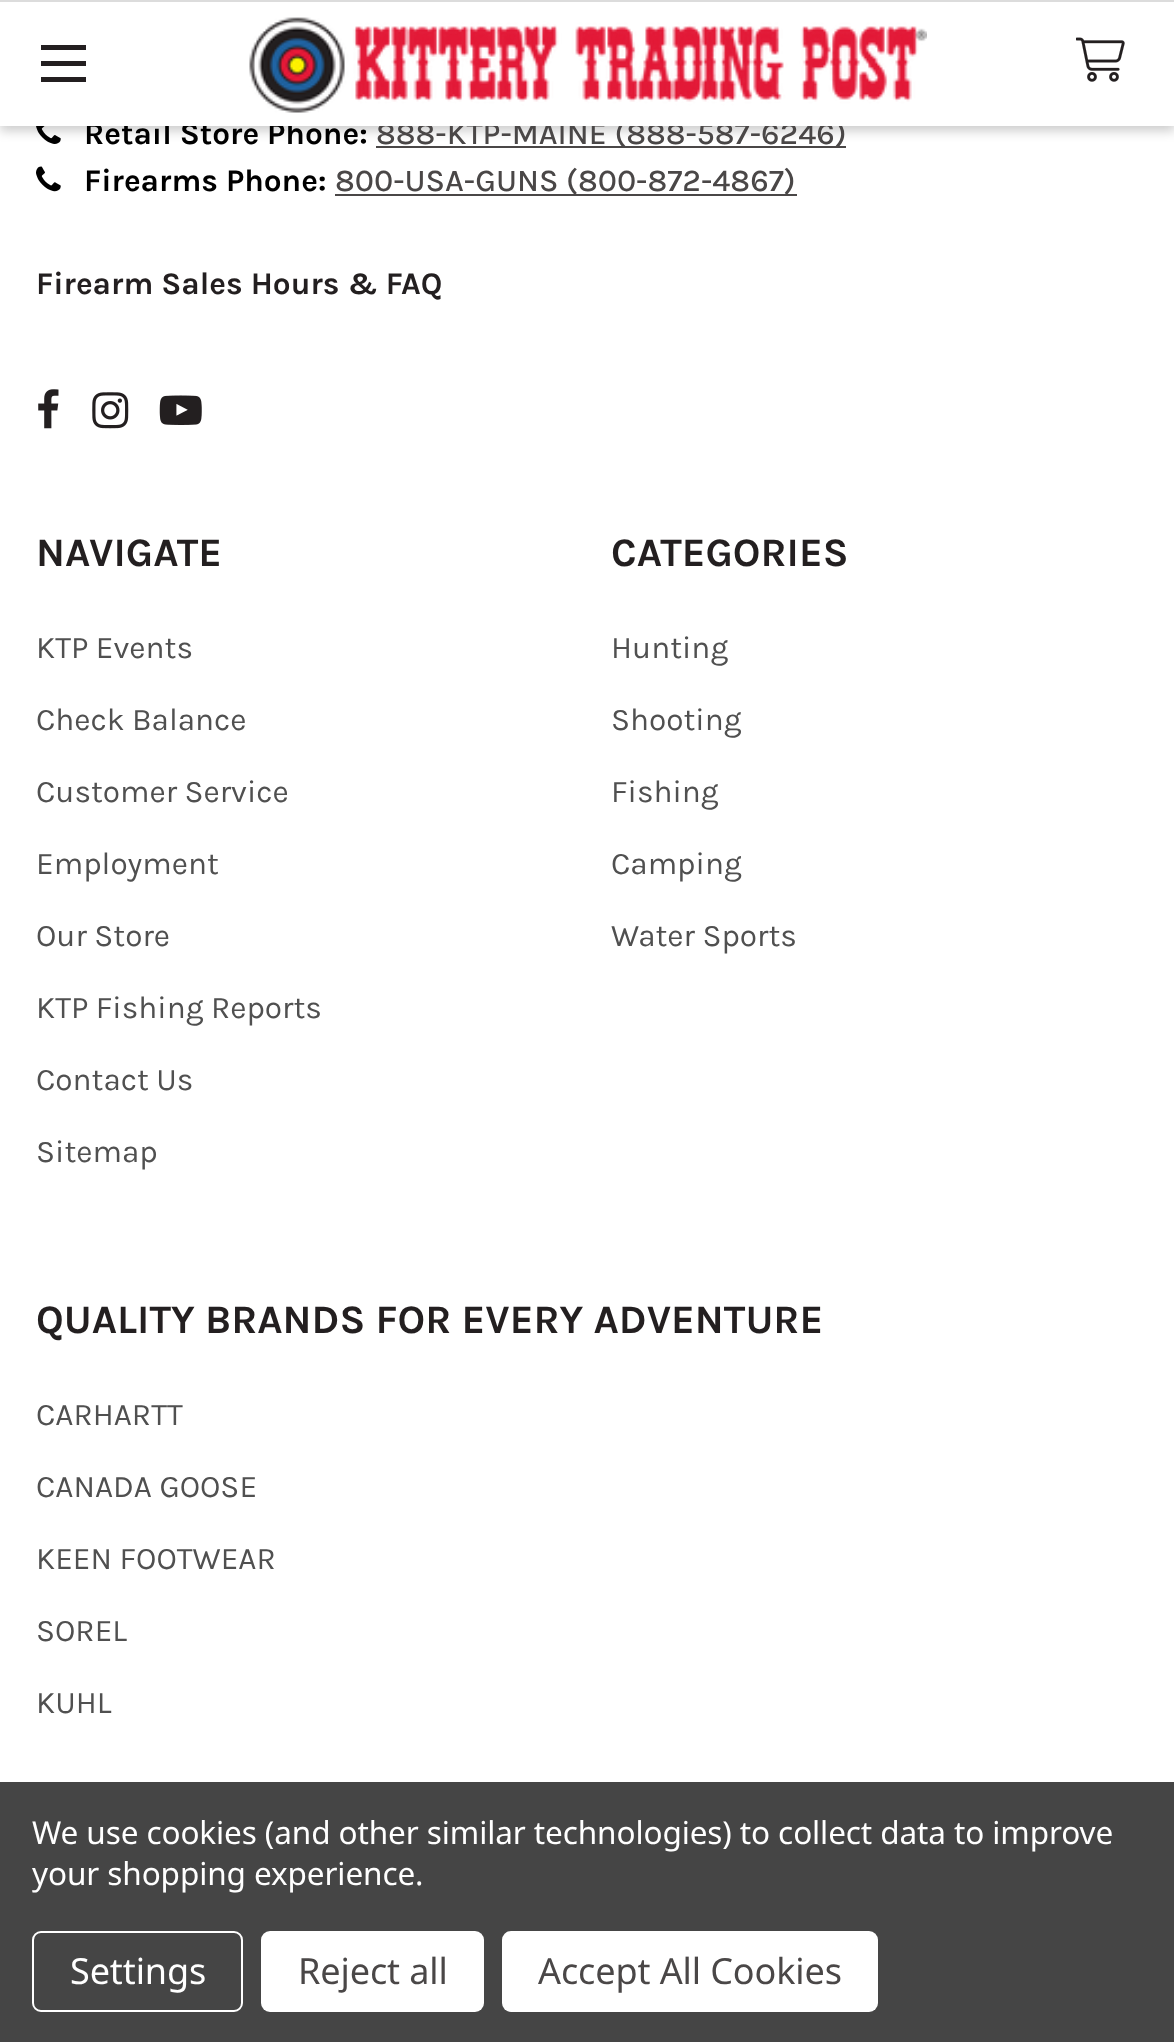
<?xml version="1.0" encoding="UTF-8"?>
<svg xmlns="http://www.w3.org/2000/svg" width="1174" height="2042">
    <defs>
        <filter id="blur1" x="-50%" y="-200%" width="200%" height="500%"><feGaussianBlur stdDeviation="5.5"/></filter>
    </defs>
    <rect width="100%" height="100%" fill="#FFFFFF"/>
    <image x="36" y="126" width="25" height="18" href="img_03.png"/>
    <rect x="376" y="146" width="470" height="2" fill="#4A4747"/>
    <rect x="0" y="5" width="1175" height="126" fill="#000000" fill-opacity="0.2" filter="url(#blur1)"/>
    <text x="84" y="144" font-family="Karla" font-size="31.5" font-weight="700" fill="#000000">Retail Store Phone:</text>
    <text x="376" y="144" font-family="Karla" font-size="31.5" font-weight="500" fill="#4A4747">888-KTP-MAINE (888-587-6246)</text>
    <rect x="0" y="2" width="1174" height="124" fill="#FFFFFF"/>
    <rect x="0" y="0" width="1174" height="2" fill="#DCDCDC"/>
    <rect x="41" y="61" width="45" height="5" fill="#231F20"/>
    <rect x="41" y="45" width="45" height="5" fill="#231F20"/>
    <rect x="41" y="77" width="45" height="5" fill="#231F20"/>
    <image x="249" y="17" width="678" height="96" href="img_01.png"/>
    <image x="1076" y="37" width="49" height="45" href="img_02.png"/>
    <image x="36" y="166" width="25" height="26" href="img_04.png"/>
    <text x="84" y="191" font-family="Karla" font-size="31.5" font-weight="700" fill="#000000">Firearms Phone:</text>
    <rect x="335" y="194" width="462" height="2" fill="#4A4747"/>
    <text x="335" y="191" font-family="Karla" font-size="31.5" font-weight="500" fill="#4A4747">800-USA-GUNS (800-872-4867)</text>
    <text x="36" y="294" font-family="Karla" font-size="31.5" font-weight="700" fill="#231F20">Firearm Sales Hours &amp; FAQ</text>
    <image x="38" y="389" width="21" height="40" href="img_05.png"/>
    <image x="92" y="392" width="37" height="37" href="img_06.png"/>
    <image x="159" y="395" width="43" height="30" href="img_07.png"/>
    <text x="36" y="566" font-family="Karla" font-size="40.5" font-weight="700" fill="#231F20">NAVIGATE</text>
    <text x="36" y="658" font-family="Karla" font-size="31.5" fill="#505050">KTP Events</text>
    <text x="36" y="730" font-family="Karla" font-size="31.5" fill="#505050">Check Balance</text>
    <text x="36" y="802" font-family="Karla" font-size="31.5" fill="#505050">Customer Service</text>
    <text x="36" y="874" font-family="Karla" font-size="31.5" fill="#505050">Employment</text>
    <text x="36" y="946" font-family="Karla" font-size="31.5" fill="#505050">Our Store</text>
    <text x="36" y="1018" font-family="Karla" font-size="31.5" fill="#505050">KTP Fishing Reports</text>
    <text x="36" y="1090" font-family="Karla" font-size="31.5" fill="#505050">Contact Us</text>
    <text x="36" y="1162" font-family="Karla" font-size="31.5" fill="#505050">Sitemap</text>
    <text x="611" y="566" font-family="Karla" font-size="40.5" font-weight="700" fill="#231F20">CATEGORIES</text>
    <text x="611" y="658" font-family="Karla" font-size="31.5" fill="#505050">Hunting</text>
    <text x="611" y="730" font-family="Karla" font-size="31.5" fill="#505050">Shooting</text>
    <text x="611" y="802" font-family="Karla" font-size="31.5" fill="#505050">Fishing</text>
    <text x="611" y="874" font-family="Karla" font-size="31.5" fill="#505050">Camping</text>
    <text x="611" y="946" font-family="Karla" font-size="31.5" fill="#505050">Water Sports</text>
    <text x="36" y="1333" font-family="Karla" font-size="40.5" font-weight="700" fill="#231F20">QUALITY BRANDS FOR EVERY ADVENTURE</text>
    <text x="36" y="1425" font-family="Karla" font-size="31.5" fill="#505050">CARHARTT</text>
    <text x="36" y="1497" font-family="Karla" font-size="31.5" fill="#505050">CANADA GOOSE</text>
    <text x="36" y="1569" font-family="Karla" font-size="31.5" fill="#505050">KEEN FOOTWEAR</text>
    <text x="36" y="1641" font-family="Karla" font-size="31.5" fill="#505050">SOREL</text>
    <text x="36" y="1713" font-family="Karla" font-size="31.5" fill="#505050">KUHL</text>
    <rect x="0" y="1782" width="1174" height="260" fill="#454545"/>
    <text font-family="Noto Sans" font-size="31.5" letter-spacing="-0.1" fill="#FFFFFF">
        <tspan x="32" y="1844">We use cookies (and other similar technologies) to collect data to improve</tspan>
        <tspan x="32" y="1885">your shopping experience.</tspan>
    </text>
    <rect x="33" y="1932" width="209" height="79" rx="8" fill="none" stroke="#FFFFFF" stroke-width="2"/>
    <text x="70" y="1984" font-family="Noto Sans" font-size="36" letter-spacing="-0.1" fill="#FFFFFF">Settings</text>
    <rect x="261" y="1931" width="223" height="81" rx="9" fill="#FFFFFF"/>
    <text x="298" y="1984" font-family="Noto Sans" font-size="36" letter-spacing="-0.1" fill="#4A4747">Reject all</text>
    <rect x="502" y="1931" width="376" height="81" rx="9" fill="#FFFFFF"/>
    <text x="538" y="1984" font-family="Noto Sans" font-size="36" letter-spacing="-0.1" fill="#4A4747">Accept All Cookies</text>
</svg>
